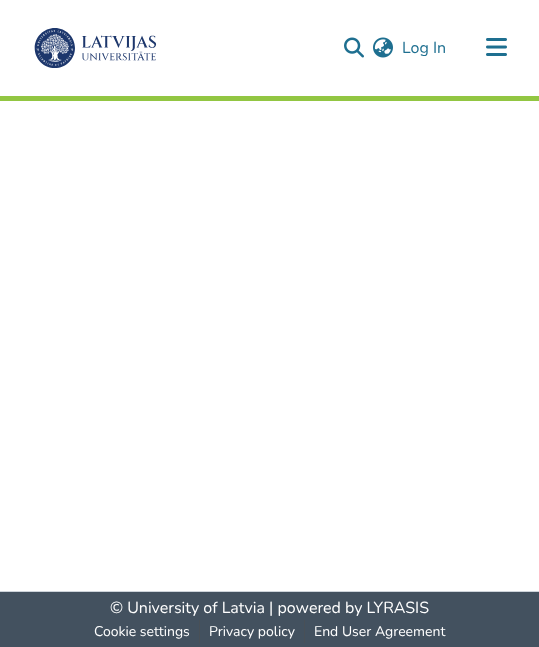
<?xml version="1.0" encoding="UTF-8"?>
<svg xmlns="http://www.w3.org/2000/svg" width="539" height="647">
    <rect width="100%" height="100%" fill="#FFFFFF"/>
    <rect x="0" y="96" width="539" height="5" fill="#92C642"/>
    <image x="34" y="28" width="123" height="40" href="img_01.png"/>
    <image x="344" y="37" width="20" height="21" href="img_02.png"/>
    <image x="373" y="37" width="20" height="21" href="img_03.png"/>
    <text x="402" y="53" font-family="Nunito" font-size="16" fill="#1E6F90">Log In</text>
    <image x="486" y="38" width="21" height="18" href="img_04.png"/>
    <rect x="0" y="592" width="539" height="55" fill="#43515F"/>
    <rect x="0" y="591" width="539" height="1" fill="#CED4DA"/>
    <text x="110" y="613" font-family="Nunito" font-size="16" fill="#FFFFFF">© University of Latvia | powered by LYRASIS</text>
    <text x="94" y="636" font-family="Nunito" font-size="14" fill="#FFFFFF">Cookie settings</text>
    <rect x="199" y="620" width="1" height="23" fill="#495057"/>
    <text x="209" y="636" font-family="Nunito" font-size="14" fill="#FFFFFF">Privacy policy</text>
    <rect x="304" y="620" width="1" height="23" fill="#495057"/>
    <text x="314" y="636" font-family="Nunito" font-size="14" fill="#FFFFFF">End User Agreement</text>
</svg>
